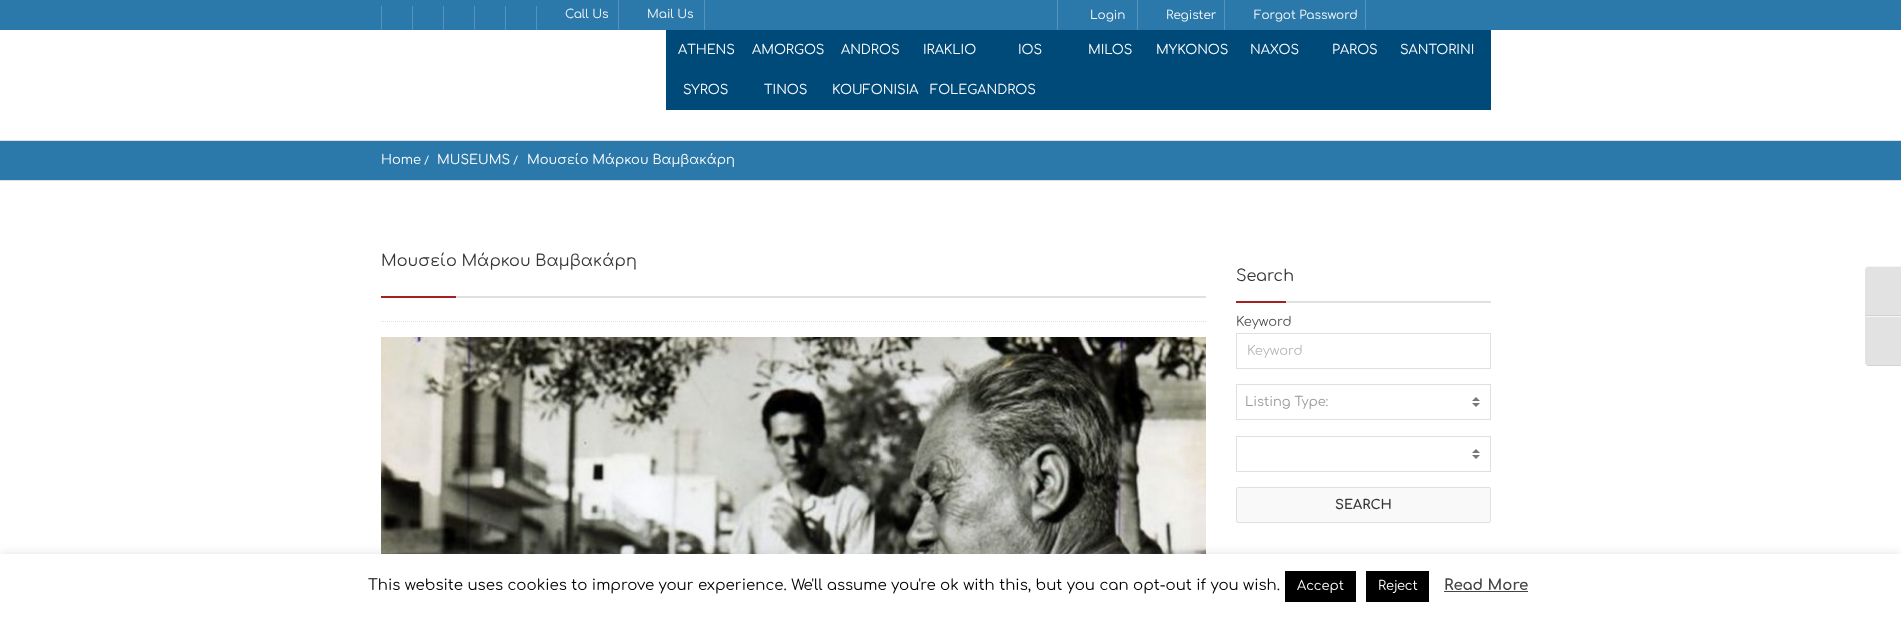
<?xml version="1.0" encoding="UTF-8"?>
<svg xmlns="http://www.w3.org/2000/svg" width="1901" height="619">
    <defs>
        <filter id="blur1" x="-50%" y="-200%" width="200%" height="500%"><feGaussianBlur stdDeviation="5"/></filter>
    </defs>
    <rect width="100%" height="100%" fill="#FFFFFF"/>
    <rect x="0" y="0" width="1901" height="30" fill="#2B78AA"/>
    <rect x="536" y="6" width="1" height="24" fill="#5593BB"/>
    <rect x="505" y="6" width="1" height="24" fill="#5593BB"/>
    <rect x="474" y="6" width="1" height="24" fill="#5593BB"/>
    <rect x="443" y="6" width="1" height="24" fill="#5593BB"/>
    <rect x="381" y="6" width="1" height="24" fill="#5593BB"/>
    <rect x="412" y="6" width="1" height="24" fill="#5593BB"/>
    <rect x="618" y="0" width="1" height="30" fill="#5593BB"/>
    <text x="565" y="18" font-family="Comfortaa" font-size="12" fill="#F9F9F9">Call Us</text>
    <rect x="704" y="0" width="1" height="30" fill="#5593BB"/>
    <text x="647" y="18" font-family="Comfortaa" font-size="12" fill="#F9F9F9">Mail Us</text>
    <rect x="1057" y="0" width="1" height="30" fill="#5593BB"/>
    <rect x="1137" y="0" width="1" height="30" fill="#5593BB"/>
    <text x="1090" y="19" font-family="Comfortaa" font-size="12" fill="#F9F9F9">Login</text>
    <rect x="1224" y="0" width="1" height="30" fill="#5593BB"/>
    <text x="1166" y="19" font-family="Comfortaa" font-size="12" fill="#F9F9F9">Register</text>
    <rect x="1365" y="0" width="1" height="30" fill="#5593BB"/>
    <text x="1254" y="19" font-family="Comfortaa" font-size="12" fill="#F9F9F9">Forgot Password</text>
    <rect x="666" y="30" width="825" height="80" fill="#004A79"/>
    <text x="678" y="54" font-family="Comfortaa" font-size="13" fill="#FFFFFF">ATHENS</text>
    <text x="752" y="54" font-family="Comfortaa" font-size="13" fill="#FFFFFF">AMORGOS</text>
    <text x="841" y="54" font-family="Comfortaa" font-size="13" fill="#FFFFFF">ANDROS</text>
    <text x="923" y="54" font-family="Comfortaa" font-size="13" fill="#FFFFFF">IRAKLIO</text>
    <text x="1018" y="54" font-family="Comfortaa" font-size="13" fill="#FFFFFF">IOS</text>
    <text x="1088" y="54" font-family="Comfortaa" font-size="13" fill="#FFFFFF">MILOS</text>
    <text x="1156" y="54" font-family="Comfortaa" font-size="13" fill="#FFFFFF">MYKONOS</text>
    <text x="1250" y="54" font-family="Comfortaa" font-size="13" fill="#FFFFFF">NAXOS</text>
    <text x="1332" y="54" font-family="Comfortaa" font-size="13" fill="#FFFFFF">PAROS</text>
    <text x="1400" y="54" font-family="Comfortaa" font-size="13" fill="#FFFFFF">SANTORINI</text>
    <text x="683" y="94" font-family="Comfortaa" font-size="13" fill="#FFFFFF">SYROS</text>
    <text x="764" y="94" font-family="Comfortaa" font-size="13" fill="#FFFFFF">TINOS</text>
    <text x="832" y="94" font-family="Comfortaa" font-size="13" fill="#FFFFFF">KOUFONISIA</text>
    <text x="930" y="94" font-family="Comfortaa" font-size="13" fill="#FFFFFF">FOLEGANDROS</text>
    <rect x="0" y="141" width="1901" height="39" fill="#2B78AA"/>
    <rect x="0" y="140" width="1901" height="1" fill="#E0E0E0"/>
    <rect x="0" y="180" width="1901" height="1" fill="#E0E0E0"/>
    <text x="381" y="164" font-family="Comfortaa" font-size="13" fill="#FFFFFF">Home</text>
    <text x="424" y="164" font-family="Comfortaa" font-size="11" fill="#FFFFFF">/</text>
    <text x="437" y="164" font-family="Comfortaa" font-size="13" fill="#FFFFFF">MUSEUMS</text>
    <text x="513" y="164" font-family="Comfortaa" font-size="11" fill="#FFFFFF">/</text>
    <text x="527" y="164" font-family="Comfortaa" font-size="13" fill="#FFFFFF">Μουσείο Μάρκου Βαμβακάρη</text>
    <rect x="456" y="296" width="750" height="2" fill="#E0E0E0"/>
    <text x="381" y="266" font-family="Comfortaa" font-size="16" fill="#353535">Μουσείο Μάρκου Βαμβακάρη</text>
    <rect x="381" y="296" width="75" height="2" fill="#A32221"/>
    <path d="M 381 321.5 H 1206" fill="none" stroke="#E0E0E0" stroke-dasharray="1 1"/>
    <image x="381" y="337" width="825" height="217" href="img_01.png"/>
    <rect x="1286" y="301" width="205" height="2" fill="#E0E0E0"/>
    <text x="1236" y="281" font-family="Comfortaa" font-size="16" fill="#353535">Search</text>
    <rect x="1236" y="301" width="50" height="2" fill="#A32221"/>
    <text x="1236" y="326" font-family="Comfortaa" font-size="13" fill="#515151">Keyword</text>
    <rect x="1236.5" y="333.5" width="254" height="35" fill="none" stroke="#E0E0E0"/>
    <text x="1247" y="355" font-family="Comfortaa" font-size="13" fill="#B8B8B8">Keyword</text>
    <rect x="1236.5" y="384.5" width="254" height="35" fill="none" stroke="#E0E0E0"/>
    <text x="1245" y="406" font-family="Comfortaa" font-size="13" fill="#999999">Listing Type:</text>
    <rect x="1236.5" y="436.5" width="254" height="35" fill="none" stroke="#E0E0E0"/>
    <path d="M 1480 401 H 1472 L 1476 397 Z M 1472 403 H 1480 L 1476 407 Z M 1480 453 H 1472 L 1476 449 Z M 1472 455 H 1480 L 1476 459 Z" fill="#777777"/>
    <rect x="1236.5" y="487.5" width="254" height="35" rx="1.5" fill="#F9F9F9" stroke="#E0E0E0"/>
    <text x="1335" y="509" font-family="Comfortaa" font-size="13" font-weight="700" fill="#353535">SEARCH</text>
    <path d="M 1869 266 H 1901 V 316 H 1865 V 270 C 1865 268 1867 266 1869 266 Z" fill="#E2E2E2"/>
    <path d="M 1869 267 H 1901 V 266 H 1869 C 1867 266 1865 268 1865 270 C 1865 268 1867 267 1869 267 Z" fill="#F5F5F5"/>
    <rect x="1865" y="315" width="36" height="1" fill="#D2D2D2"/>
    <path d="M 1865 316 H 1901 V 366 H 1869 C 1867 366 1865 364 1865 362 Z" fill="#E2E2E2"/>
    <rect x="1865" y="316" width="36" height="1" fill="#F5F5F5"/>
    <path d="M 1901 366 V 365 H 1869 C 1867 365 1865 364 1865 362 C 1865 364 1867 366 1869 366 Z" fill="#D2D2D2"/>
    <rect x="0" y="553" width="1901" height="65" fill="#ACABAB" fill-opacity="0.3" filter="url(#blur1)"/>
    <rect x="0" y="554" width="1901" height="65" fill="#FFFFFF"/>
    <text x="368" y="590" font-family="Comfortaa" font-size="15" fill="#000000">This website uses cookies to improve your experience. We'll assume you're ok with this, but you can opt-out if you wish.</text>
    <rect x="1285" y="571" width="71" height="31" fill="#000000"/>
    <text x="1297" y="590" font-family="Comfortaa" font-size="13" fill="#FFFFFF">Accept</text>
    <rect x="1366" y="571" width="63" height="31" fill="#000000"/>
    <text x="1378" y="590" font-family="Comfortaa" font-size="13" fill="#FFFFFF">Reject</text>
    <text x="1444" y="590" font-family="Comfortaa" font-size="15" font-weight="700" fill="#444444">Read More</text>
    <rect x="1444" y="591" width="84" height="1" fill="#444444"/>
</svg>
